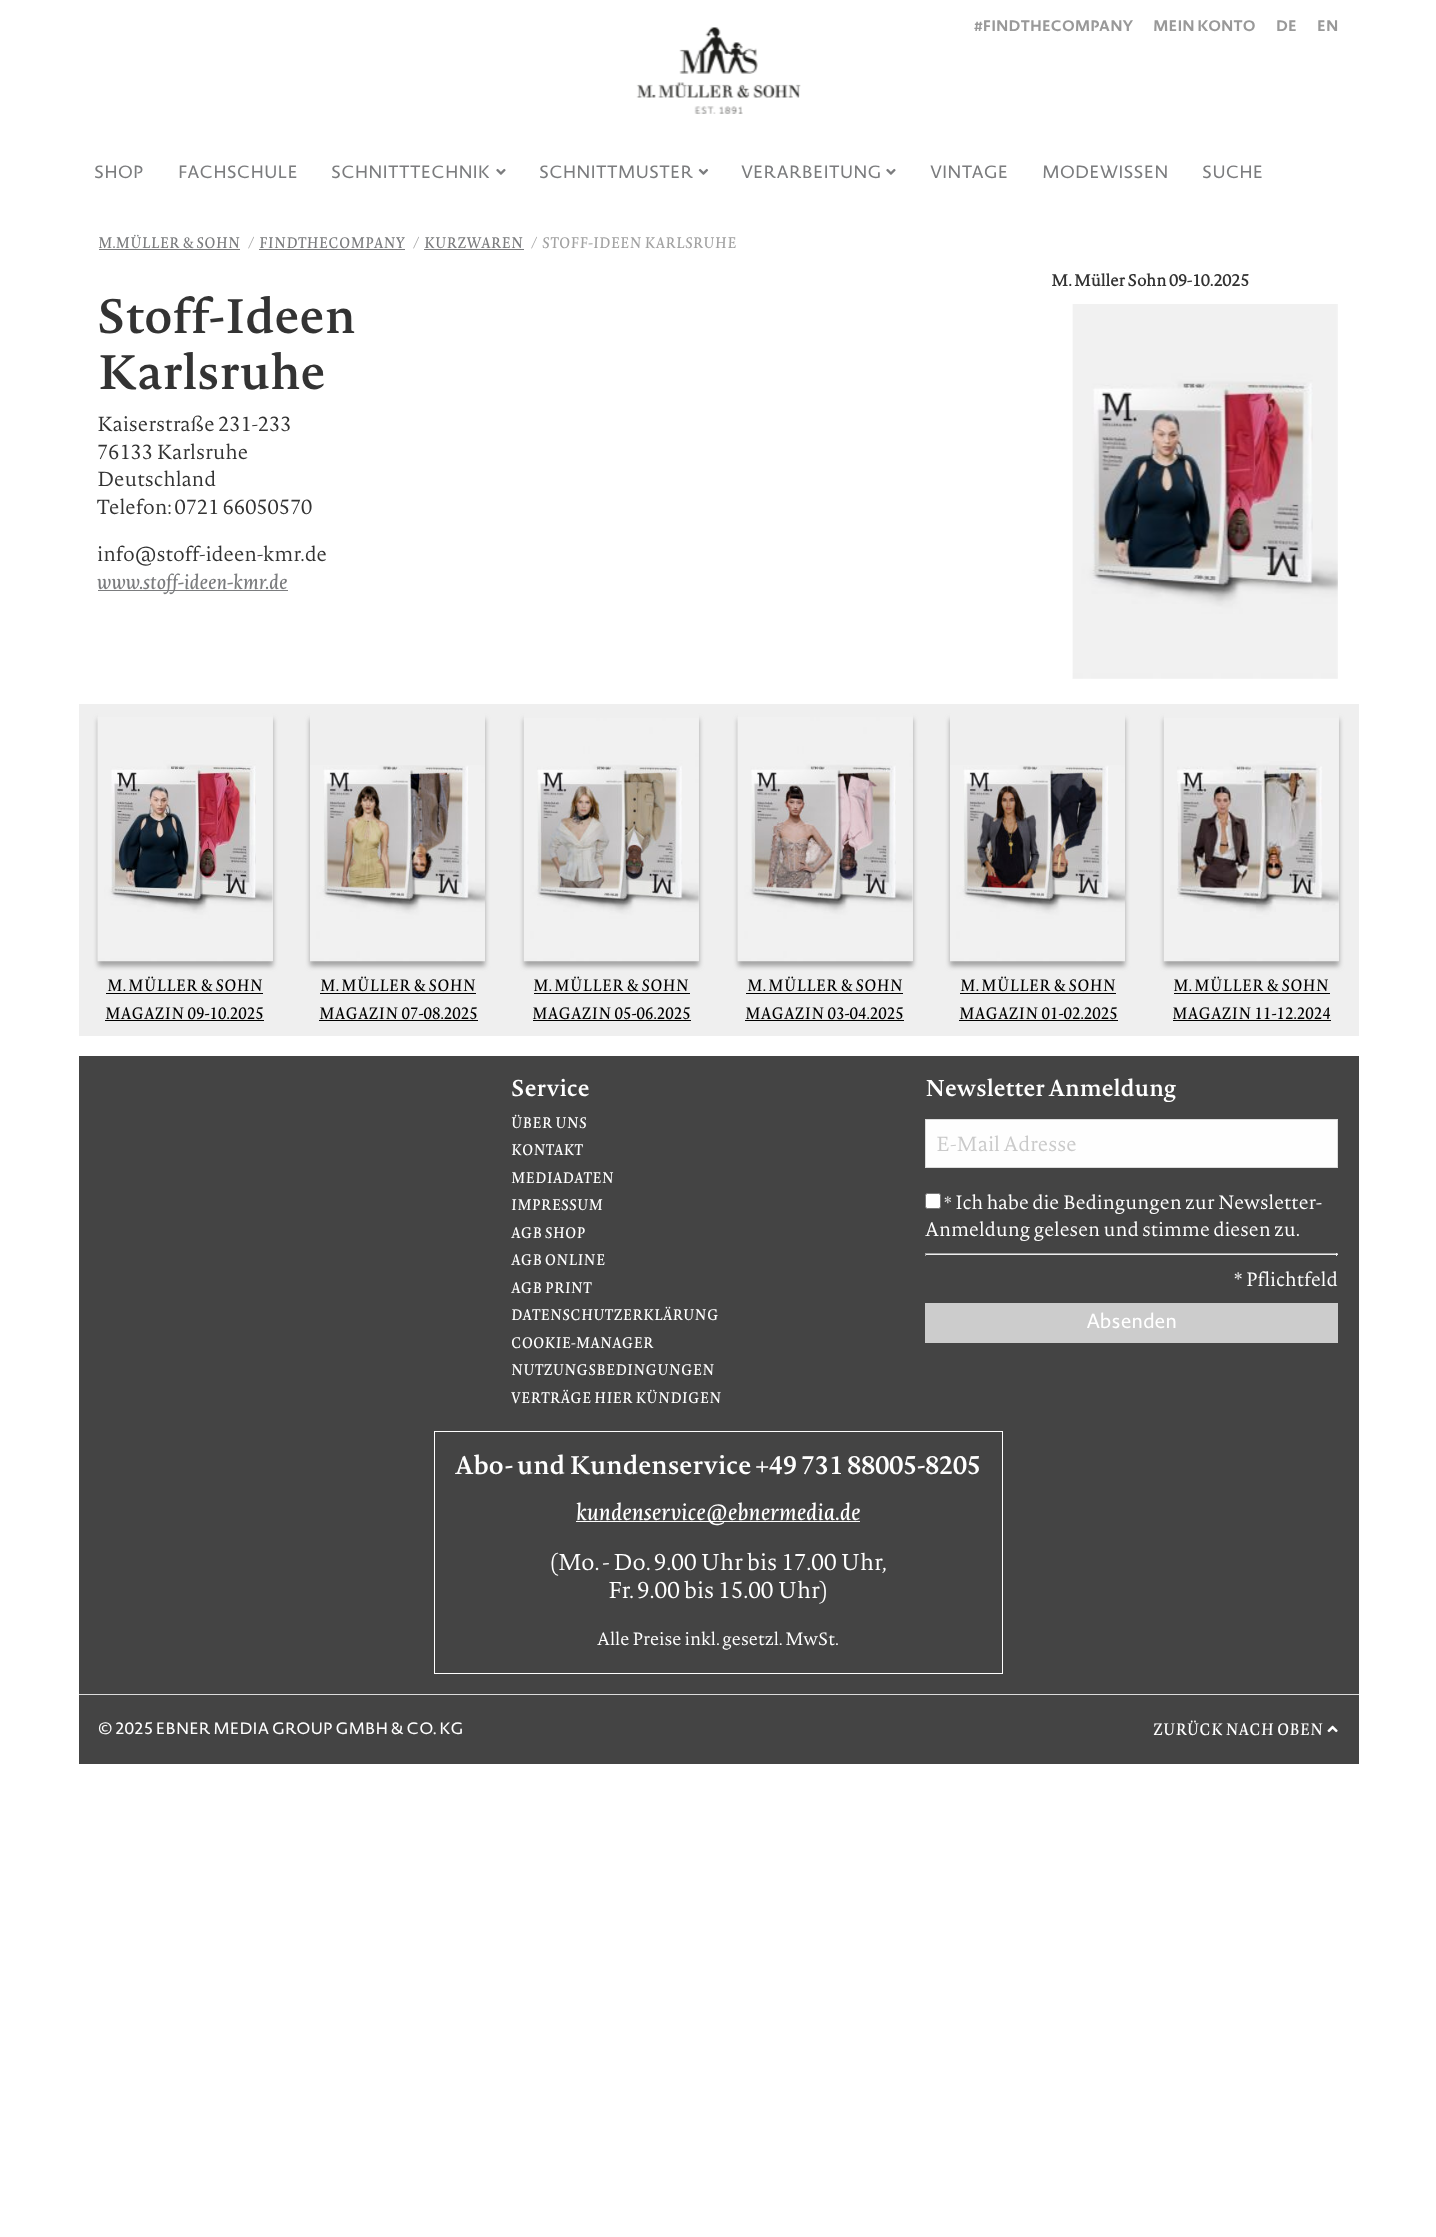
<?xml version="1.0" encoding="UTF-8"?>
<svg xmlns="http://www.w3.org/2000/svg" width="1436" height="2237">
    <defs>
        <clipPath id="clip1"><path d="M 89 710 H 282 V 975 H 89 Z M 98 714 H 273 V 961 H 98 Z" clip-rule="evenodd"/></clipPath>
        <filter id="blur1" x="-50%" y="-200%" width="200%" height="500%"><feGaussianBlur stdDeviation="2.5"/></filter>
        <clipPath id="clip2"><path d="M 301 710 H 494 V 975 H 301 Z M 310 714 H 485 V 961 H 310 Z" clip-rule="evenodd"/></clipPath>
        <clipPath id="clip3"><path d="M 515 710 H 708 V 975 H 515 Z M 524 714 H 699 V 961 H 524 Z" clip-rule="evenodd"/></clipPath>
        <clipPath id="clip4"><path d="M 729 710 H 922 V 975 H 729 Z M 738 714 H 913 V 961 H 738 Z" clip-rule="evenodd"/></clipPath>
        <clipPath id="clip5"><path d="M 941 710 H 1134 V 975 H 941 Z M 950 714 H 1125 V 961 H 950 Z" clip-rule="evenodd"/></clipPath>
        <clipPath id="clip6"><path d="M 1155 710 H 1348 V 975 H 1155 Z M 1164 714 H 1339 V 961 H 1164 Z" clip-rule="evenodd"/></clipPath>
    </defs>
    <rect width="100%" height="100%" fill="#FFFFFF"/>
    <image x="636" y="27" width="165" height="87" href="img_01.png"/>
    <text x="974" y="31" font-family="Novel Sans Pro" font-size="15" font-weight="700" fill="#999999">#FINDTHECOMPANY</text>
    <text x="1153" y="31" font-family="Novel Sans Pro" font-size="15" font-weight="700" fill="#999999">MEIN KONTO</text>
    <text x="1276" y="31" font-family="Novel Sans Pro" font-size="15" font-weight="700" fill="#999999">DE</text>
    <text x="1317" y="31" font-family="Novel Sans Pro" font-size="15" font-weight="700" fill="#999999">EN</text>
    <text x="94" y="178" font-family="Novel Sans Pro" font-size="17.5" fill="#7B7C7E">SHOP</text>
    <text x="178" y="178" font-family="Novel Sans Pro" font-size="17.5" fill="#7B7C7E">FACHSCHULE</text>
    <text x="331" y="178" font-family="Novel Sans Pro" font-size="17.5" fill="#7B7C7E">SCHNITTTECHNIK</text>
    <image x="496" y="168" width="10" height="7" href="img_02.png"/>
    <text x="539" y="178" font-family="Novel Sans Pro" font-size="17.5" fill="#7B7C7E">SCHNITTMUSTER</text>
    <image x="698" y="168" width="11" height="7" href="img_03.png"/>
    <text x="741" y="178" font-family="Novel Sans Pro" font-size="17.5" fill="#7B7C7E">VERARBEITUNG</text>
    <image x="886" y="168" width="10" height="7" href="img_02.png"/>
    <text x="930" y="178" font-family="Novel Sans Pro" font-size="17.5" fill="#7B7C7E">VINTAGE</text>
    <text x="1042" y="178" font-family="Novel Sans Pro" font-size="17.5" fill="#7B7C7E">MODEWISSEN</text>
    <text x="1202" y="178" font-family="Novel Sans Pro" font-size="17.5" fill="#7B7C7E">SUCHE</text>
    <text x="98" y="248" font-family="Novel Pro" font-size="15" font-style="italic" fill="#7B7C7E">M.MÜLLER &amp; SOHN</text>
    <rect x="99" y="249" width="141" height="1" fill="#7B7C7E"/>
    <text x="248" y="248" font-family="Novel Pro" font-size="15" font-style="italic" fill="#A2A2A2">/</text>
    <text x="259" y="248" font-family="Novel Pro" font-size="15" font-style="italic" fill="#7B7C7E">FINDTHECOMPANY</text>
    <rect x="259" y="249" width="146" height="1" fill="#7B7C7E"/>
    <text x="413" y="248" font-family="Novel Pro" font-size="15" font-style="italic" fill="#A2A2A2">/</text>
    <text x="424" y="248" font-family="Novel Pro" font-size="15" font-style="italic" fill="#7B7C7E">KURZWAREN</text>
    <rect x="424" y="249" width="100" height="1" fill="#7B7C7E"/>
    <text x="531" y="248" font-family="Novel Pro" font-size="15" font-style="italic" fill="#A2A2A2">/</text>
    <text x="542" y="248" font-family="Novel Pro" font-size="15" font-style="italic" fill="#A2A2A2">STOFF-IDEEN KARLSRUHE</text>
    <text x="1051" y="286" font-family="Novel Pro" font-size="16" font-weight="700" fill="#333333">M. Müller Sohn 09-10.2025</text>
    <image x="1072" y="304" width="266" height="375" href="img_04.png"/>
    <text font-family="Novel Pro" font-size="47.5" font-weight="600" fill="#333333">
        <tspan x="97" y="333">Stoff-Ideen</tspan>
        <tspan x="97" y="389">Karlsruhe</tspan>
    </text>
    <text font-family="Novel Pro" font-size="20" font-weight="300" fill="#333333">
        <tspan x="97" y="431">Kaiserstraße 231-233</tspan>
        <tspan x="97" y="459">76133 Karlsruhe</tspan>
        <tspan x="97" y="486">Deutschland</tspan>
        <tspan x="97" y="514">Telefon: 0721 66050570</tspan>
    </text>
    <text x="97" y="561" font-family="Novel Pro" font-size="20" font-weight="300" fill="#333333">info@stoff-ideen-kmr.de</text>
    <rect x="98" y="590" width="190" height="1" fill="#7B7C7E"/>
    <text x="97" y="589" font-family="Novel Pro" font-size="20" font-style="italic" fill="#7B7C7E">www.stoff-ideen-kmr.de</text>
    <rect x="79" y="704" width="1280" height="332" fill="#EFEFEF"/>
    <g clip-path="url(#clip1)">
        <rect x="98" y="719" width="175" height="247" fill="#A2A2A2" filter="url(#blur1)"/>
    </g>
    <image x="97" y="717" width="176" height="245" href="img_05.png"/>
    <text x="107" y="991" font-family="Novel Pro" font-size="16.25" font-style="italic" fill="#000000">M. MÜLLER &amp; SOHN</text>
    <rect x="106" y="993" width="157" height="1" fill="#000000"/>
    <text x="105" y="1019" font-family="Novel Pro" font-size="16.25" font-style="italic" fill="#000000">MAGAZIN 09-10.2025</text>
    <rect x="105" y="1020" width="159" height="1" fill="#000000"/>
    <g clip-path="url(#clip2)">
        <rect x="310" y="719" width="175" height="247" fill="#A2A2A2" filter="url(#blur1)"/>
    </g>
    <image x="310" y="765" width="175" height="197" href="img_06.png"/>
    <text x="320" y="991" font-family="Novel Pro" font-size="16.25" font-style="italic" fill="#000000">M. MÜLLER &amp; SOHN</text>
    <rect x="320" y="993" width="156" height="1" fill="#000000"/>
    <text x="319" y="1019" font-family="Novel Pro" font-size="16.25" font-style="italic" fill="#000000">MAGAZIN 07-08.2025</text>
    <rect x="319" y="1020" width="159" height="1" fill="#000000"/>
    <g clip-path="url(#clip3)">
        <rect x="524" y="719" width="175" height="247" fill="#A2A2A2" filter="url(#blur1)"/>
    </g>
    <image x="523" y="718" width="176" height="244" href="img_07.png"/>
    <text x="533" y="991" font-family="Novel Pro" font-size="16.25" font-style="italic" fill="#000000">M. MÜLLER &amp; SOHN</text>
    <rect x="534" y="993" width="156" height="1" fill="#000000"/>
    <text x="532" y="1019" font-family="Novel Pro" font-size="16.25" font-style="italic" fill="#000000">MAGAZIN 05-06.2025</text>
    <rect x="533" y="1020" width="158" height="1" fill="#000000"/>
    <g clip-path="url(#clip4)">
        <rect x="738" y="719" width="175" height="247" fill="#A2A2A2" filter="url(#blur1)"/>
    </g>
    <image x="737" y="717" width="176" height="245" href="img_08.png"/>
    <text x="747" y="991" font-family="Novel Pro" font-size="16.25" font-style="italic" fill="#000000">M. MÜLLER &amp; SOHN</text>
    <rect x="746" y="993" width="157" height="1" fill="#000000"/>
    <text x="745" y="1019" font-family="Novel Pro" font-size="16.25" font-style="italic" fill="#000000">MAGAZIN 03-04.2025</text>
    <rect x="745" y="1020" width="159" height="1" fill="#000000"/>
    <g clip-path="url(#clip5)">
        <rect x="950" y="719" width="175" height="247" fill="#A2A2A2" filter="url(#blur1)"/>
    </g>
    <image x="950" y="765" width="175" height="197" href="img_09.png"/>
    <text x="960" y="991" font-family="Novel Pro" font-size="16.25" font-style="italic" fill="#000000">M. MÜLLER &amp; SOHN</text>
    <rect x="960" y="993" width="156" height="1" fill="#000000"/>
    <text x="959" y="1019" font-family="Novel Pro" font-size="16.25" font-style="italic" fill="#000000">MAGAZIN 01-02.2025</text>
    <rect x="959" y="1020" width="159" height="1" fill="#000000"/>
    <g clip-path="url(#clip6)">
        <rect x="1164" y="719" width="175" height="247" fill="#A2A2A2" filter="url(#blur1)"/>
    </g>
    <image x="1163" y="718" width="176" height="244" href="img_10.png"/>
    <text x="1173" y="991" font-family="Novel Pro" font-size="16.25" font-style="italic" fill="#000000">M. MÜLLER &amp; SOHN</text>
    <rect x="1174" y="993" width="156" height="1" fill="#000000"/>
    <text x="1172" y="1019" font-family="Novel Pro" font-size="16.25" font-style="italic" fill="#000000">MAGAZIN 11-12.2024</text>
    <rect x="1173" y="1020" width="158" height="1" fill="#000000"/>
    <rect x="79" y="1056" width="1280" height="638" fill="#444444"/>
    <text x="511" y="1096" font-family="Novel Pro" font-size="22.5" font-weight="600" fill="#FFFFFF">Service</text>
    <text font-family="Novel Pro" font-size="15" font-style="italic" fill="#FFFFFF">
        <tspan x="511" y="1128">ÜBER UNS</tspan>
        <tspan x="511" y="1155">KONTAKT</tspan>
        <tspan x="511" y="1183">MEDIADATEN</tspan>
        <tspan x="511" y="1210">IMPRESSUM</tspan>
        <tspan x="511" y="1238">AGB SHOP</tspan>
        <tspan x="511" y="1265">AGB ONLINE</tspan>
        <tspan x="511" y="1293">AGB PRINT</tspan>
        <tspan x="511" y="1320">DATENSCHUTZERKLÄRUNG</tspan>
        <tspan x="511" y="1348">COOKIE-MANAGER</tspan>
        <tspan x="511" y="1375">NUTZUNGSBEDINGUNGEN</tspan>
        <tspan x="511" y="1403">VERTRÄGE HIER KÜNDIGEN</tspan>
    </text>
    <text x="925" y="1096" font-family="Novel Pro" font-size="22.5" font-weight="600" fill="#FFFFFF">Newsletter Anmeldung</text>
    <rect x="925.5" y="1119.5" width="412" height="48" fill="#FEFEFE" stroke="#DDDDDD"/>
    <text x="936" y="1151" font-family="Novel Pro" font-size="20" font-weight="300" fill="#CACACA">E-Mail Adresse</text>
    <rect x="925.5" y="1193.5" width="15" height="15" rx="2" fill="#FFFFFF" stroke="#767676"/>
    <text x="944" y="1209" font-family="Novel Pro" font-size="17.5" font-weight="300" fill="#FFFFFF">*</text>
    <text x="955" y="1209" font-family="Novel Pro" font-size="19" font-weight="300" fill="#FFFFFF">Ich habe die Bedingungen zur Newsletter-</text>
    <text x="925" y="1236" font-family="Novel Pro" font-size="19" font-weight="300" fill="#FFFFFF">Anmeldung gelesen und stimme diesen zu.</text>
    <rect x="925" y="1253" width="413" height="1" fill="#9F9F9F"/>
    <rect x="1336" y="1253" width="1" height="3" fill="#EEEEEE"/>
    <rect x="925" y="1254" width="413" height="1" fill="#EEEEEE"/>
    <rect x="925" y="1253" width="1" height="3" fill="#9F9F9F"/>
    <text x="1234" y="1286" font-family="Novel Pro" font-size="19" font-weight="300" fill="#FFFFFF">* Pflichtfeld</text>
    <rect x="925" y="1303" width="413" height="40" fill="#CCCCCC"/>
    <text x="1086" y="1328" font-family="Novel Sans Pro" font-size="20" fill="#FFFFFF">Absenden</text>
    <rect x="434.5" y="1431.5" width="568" height="242" fill="none" stroke="#FFFFFF"/>
    <text x="455" y="1474" font-family="Novel Pro" font-size="25" font-weight="600" fill="#FFFFFF">Abo- und Kundenservice +49 731 88005-8205</text>
    <rect x="576" y="1521" width="284" height="1" fill="#FFFFFF"/>
    <text x="576" y="1520" font-family="Novel Pro" font-size="22.5" font-style="italic" fill="#FFFFFF">kundenservice@ebnermedia.de</text>
    <text x="549" y="1570" font-family="Novel Pro" font-size="22.5" font-weight="300" fill="#FFFFFF">(Mo. - Do. 9.00 Uhr bis 17.00 Uhr,</text>
    <text x="608" y="1598" font-family="Novel Pro" font-size="22.5" font-weight="300" fill="#FFFFFF">Fr. 9.00 bis 15.00 Uhr)</text>
    <text x="597" y="1645" font-family="Novel Pro" font-size="17.5" font-weight="300" fill="#FFFFFF">Alle Preise inkl. gesetzl. MwSt.</text>
    <rect x="79" y="1695" width="1280" height="69" fill="#444444"/>
    <rect x="79" y="1694" width="1280" height="1" fill="#DDDDDD"/>
    <text x="98" y="1734" font-family="Novel Sans Pro" font-size="16.25" fill="#FFFFFF">© 2025 EBNER MEDIA GROUP GMBH &amp; CO. KG</text>
    <text x="1153" y="1735" font-family="Novel Pro" font-size="16.25" font-style="italic" fill="#FFFFFF">ZURÜCK NACH OBEN</text>
    <image x="1327" y="1725" width="11" height="8" href="img_11.png"/>
</svg>
